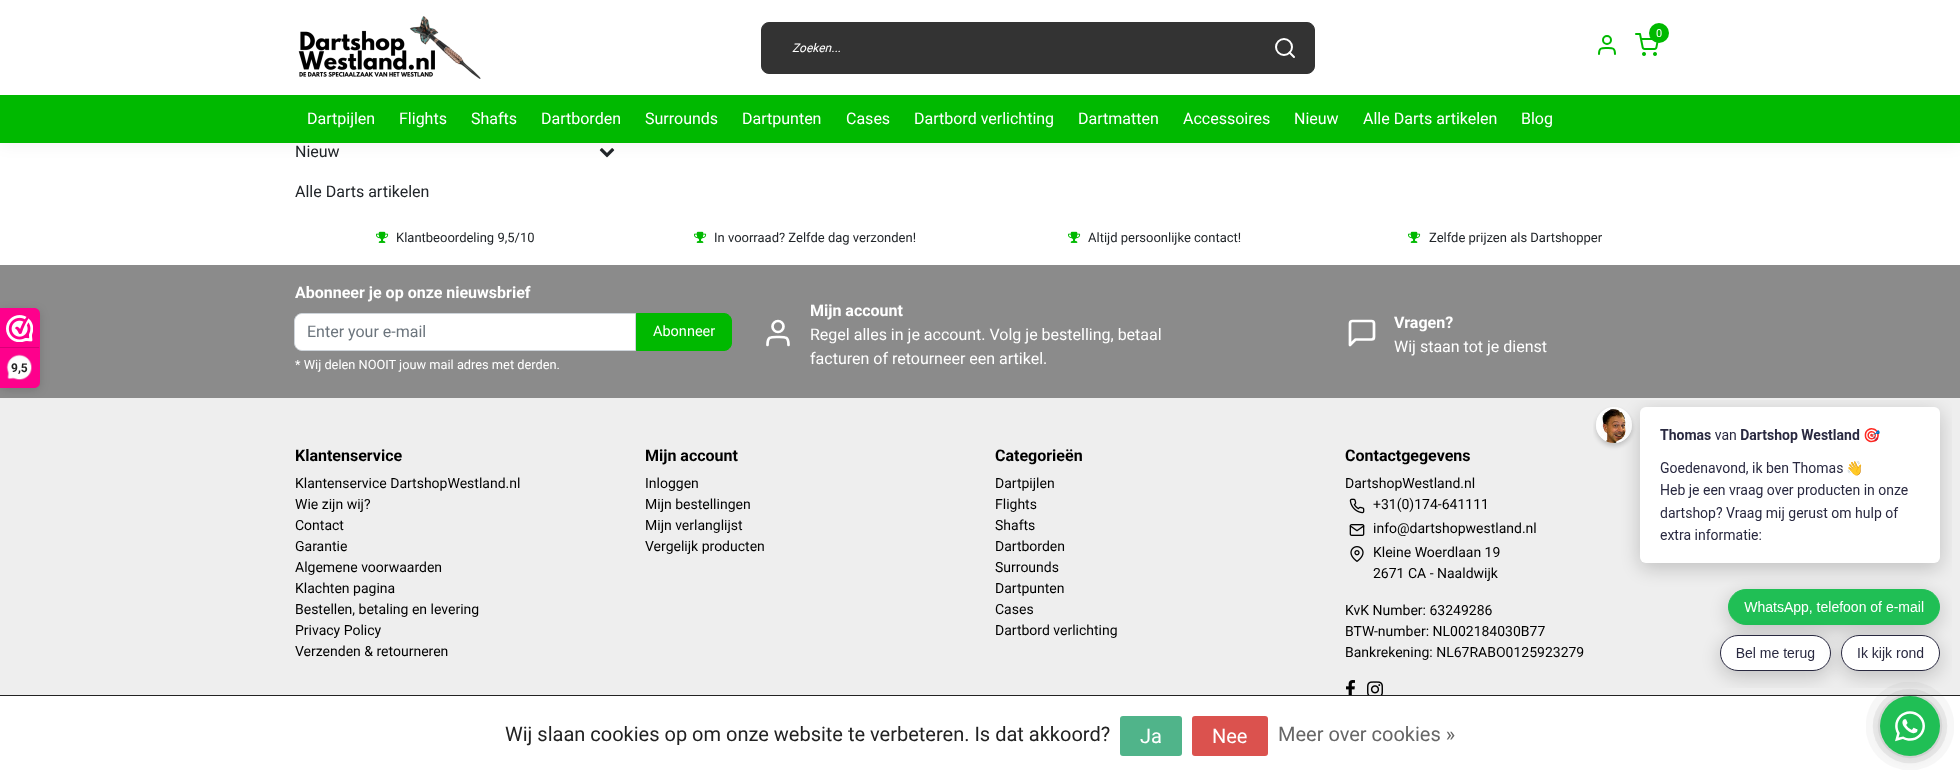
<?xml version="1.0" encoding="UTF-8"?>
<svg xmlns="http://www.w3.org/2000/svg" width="1960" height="776">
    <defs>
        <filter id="blur1" x="-50%" y="-200%" width="200%" height="500%"><feGaussianBlur stdDeviation="5"/></filter>
        <filter id="blur2" x="-50%" y="-200%" width="200%" height="500%"><feGaussianBlur stdDeviation="8"/></filter>
    </defs>
    <rect width="100%" height="100%" fill="#FFFFFF"/>
    <rect x="0" y="265" width="1960" height="133" fill="#8B8B8B"/>
    <rect x="0" y="398" width="1960" height="297" fill="#EEEEEE"/>
    <rect x="0" y="310" width="40" height="80" rx="6" fill="#000000" fill-opacity="0.15" filter="url(#blur1)"/>
    <path d="M 0 308 H 34 C 37.5 308 40 310.5 40 314 V 382 C 40 385.5 37.5 388 34 388 H 0 Z" fill="#FE008C"/>
    <image x="6" y="315" width="27" height="27" href="img_01.png"/>
    <rect x="0" y="347" width="39" height="1" fill="#D80077"/>
    <image x="6" y="354" width="26" height="26" href="img_02.png"/>
    <text x="11" y="372" font-family="Roboto" font-size="12" font-weight="700" fill="#222222">9,5</text>
    <image x="599" y="148" width="16" height="10" href="img_05.png"/>
    <rect x="0" y="2" width="1960" height="143" fill="#000000" fill-opacity="0.05" filter="url(#blur2)"/>
    <rect x="0" y="0" width="1960" height="95" fill="#FFFFFF"/>
    <image x="298" y="16" width="183" height="63" href="img_03.png"/>
    <image x="1635" y="33" width="24" height="23" href="img_04.png"/>
    <circle cx="1659" cy="33" r="10" fill="#00B900"/>
    <text x="1656" y="37" font-family="Roboto" font-size="11" fill="#FFFFFF">0</text>
    <path d="M 1615 54 C 1615 47.5 1612.5 48 1607 48 C 1601.5 48 1599 47.5 1599 54" fill="none" stroke="#00B900" stroke-width="2" stroke-linecap="round" stroke-linejoin="round"/>
    <circle cx="1607" cy="40" r="4" fill="none" stroke="#00B900" stroke-width="2"/>
    <rect x="761.5" y="22.5" width="553" height="51" rx="7.5" fill="#333333" stroke="#333333"/>
    <text x="792" y="52" font-family="Roboto" font-size="12" font-style="italic" fill="#FFFFFF">Zoeken...</text>
    <circle cx="1284" cy="47" r="8" fill="none" stroke="#FFFFFF" stroke-width="2"/>
    <path d="M 1294 57 L 1289.5 52.5" fill="none" stroke="#FFFFFF" stroke-width="2" stroke-linecap="round" stroke-linejoin="round"/>
    <rect x="0" y="95" width="1960" height="48" fill="#00B900"/>
    <text x="307" y="124" font-family="Roboto" font-size="16" fill="#FFFFFF">Dartpijlen</text>
    <text x="399" y="124" font-family="Roboto" font-size="16" fill="#FFFFFF">Flights</text>
    <text x="471" y="124" font-family="Roboto" font-size="16" fill="#FFFFFF">Shafts</text>
    <text x="541" y="124" font-family="Roboto" font-size="16" fill="#FFFFFF">Dartborden</text>
    <text x="645" y="124" font-family="Roboto" font-size="16" fill="#FFFFFF">Surrounds</text>
    <text x="742" y="124" font-family="Roboto" font-size="16" fill="#FFFFFF">Dartpunten</text>
    <text x="846" y="124" font-family="Roboto" font-size="16" fill="#FFFFFF">Cases</text>
    <text x="914" y="124" font-family="Roboto" font-size="16" fill="#FFFFFF">Dartbord verlichting</text>
    <text x="1078" y="124" font-family="Roboto" font-size="16" fill="#FFFFFF">Dartmatten</text>
    <text x="1183" y="124" font-family="Roboto" font-size="16" fill="#FFFFFF">Accessoires</text>
    <text x="1294" y="124" font-family="Roboto" font-size="16" fill="#FFFFFF">Nieuw</text>
    <text x="1363" y="124" font-family="Roboto" font-size="16" fill="#FFFFFF">Alle Darts artikelen</text>
    <text x="1521" y="124" font-family="Roboto" font-size="16" fill="#FFFFFF">Blog</text>
    <text x="295" y="157" font-family="Roboto" font-size="16" fill="#212529">Nieuw</text>
    <text x="295" y="197" font-family="Roboto" font-size="16" fill="#212529">Alle Darts artikelen</text>
    <image x="376" y="231" width="13" height="12" href="img_06.png"/>
    <text x="396" y="242" font-family="Roboto" font-size="13" fill="#212529">Klantbeoordeling 9,5/10</text>
    <image x="694" y="231" width="13" height="12" href="img_06.png"/>
    <text x="714" y="242" font-family="Roboto" font-size="13" fill="#212529">In voorraad? Zelfde dag verzonden!</text>
    <image x="1068" y="231" width="13" height="12" href="img_06.png"/>
    <text x="1088" y="242" font-family="Roboto" font-size="13" fill="#212529">Altijd persoonlijke contact!</text>
    <image x="1408" y="231" width="13" height="12" href="img_06.png"/>
    <text x="1429" y="242" font-family="Roboto" font-size="13" fill="#212529">Zelfde prijzen als Dartshopper</text>
    <text x="295" y="298" font-family="Roboto" font-size="16" font-weight="700" fill="#FFFFFF">Abonneer je op onze nieuwsbrief</text>
    <path d="M 302 313.5 H 635.5 V 350.5 H 302 C 298 350.5 294.5 347 294.5 343 V 321 C 294.5 317 298 313.5 302 313.5 Z" fill="#FFFFFF" stroke="#CED4DA"/>
    <text x="307" y="337" font-family="Roboto" font-size="16" fill="#6C757D">Enter your e-mail</text>
    <path d="M 636.5 313.5 H 724 C 728 313.5 731.5 317 731.5 321 V 343 C 731.5 347 728 350.5 724 350.5 H 636.5 Z" fill="#00B900" stroke="#00B900"/>
    <text x="653" y="336" font-family="Roboto" font-size="14.5" fill="#FFFFFF">Abonneer</text>
    <text x="295" y="369" font-family="Roboto" font-size="12.8" fill="#FFFFFF">* Wij delen NOOIT jouw mail adres met derden.</text>
    <path d="M 788.5 345 C 788.5 336.5 785.5 337 778 337 C 770.5 337 767.5 336.5 767.5 345" fill="none" stroke="#FFFFFF" stroke-width="2.7" stroke-linecap="round" stroke-linejoin="round"/>
    <circle cx="778" cy="326.5" r="5.5" fill="none" stroke="#FFFFFF" stroke-width="2.7"/>
    <text x="810" y="316" font-family="Roboto" font-size="16" font-weight="700" fill="#FFFFFF">Mijn account</text>
    <text font-family="Roboto" font-size="16" fill="#FFFFFF">
        <tspan x="810" y="340">Regel alles in je account. Volg je bestelling, betaal</tspan>
        <tspan x="810" y="364">facturen of retourneer een artikel.</tspan>
    </text>
    <path d="M 1374 337 C 1374 338.5 1373 339.5 1371.5 339.5 H 1355.5 L 1350 345 V 323.5 C 1350 322 1351 321 1352.5 321 H 1371.5 C 1373 321 1374 322 1374 323.5 Z" fill="none" stroke="#FFFFFF" stroke-width="2.7" stroke-linecap="round" stroke-linejoin="round"/>
    <text x="1394" y="328" font-family="Roboto" font-size="16" font-weight="700" fill="#FFFFFF">Vragen?</text>
    <text x="1394" y="352" font-family="Roboto" font-size="16" fill="#FFFFFF">Wij staan tot je dienst</text>
    <text x="295" y="461" font-family="Roboto" font-size="16" font-weight="700" fill="#000000">Klantenservice</text>
    <text font-family="Roboto" font-size="14" fill="#000000">
        <tspan x="295" y="488">Klantenservice DartshopWestland.nl</tspan>
        <tspan x="295" y="509">Wie zijn wij?</tspan>
        <tspan x="295" y="530">Contact</tspan>
        <tspan x="295" y="551">Garantie</tspan>
        <tspan x="295" y="572">Algemene voorwaarden</tspan>
        <tspan x="295" y="593">Klachten pagina</tspan>
        <tspan x="295" y="614">Bestellen, betaling en levering</tspan>
        <tspan x="295" y="635">Privacy Policy</tspan>
        <tspan x="295" y="656">Verzenden &amp; retourneren</tspan>
    </text>
    <text x="645" y="461" font-family="Roboto" font-size="16" font-weight="700" fill="#000000">Mijn account</text>
    <text font-family="Roboto" font-size="14" fill="#000000">
        <tspan x="645" y="488">Inloggen</tspan>
        <tspan x="645" y="509">Mijn bestellingen</tspan>
        <tspan x="645" y="530">Mijn verlanglijst</tspan>
        <tspan x="645" y="551">Vergelijk producten</tspan>
    </text>
    <text x="995" y="461" font-family="Roboto" font-size="16" font-weight="700" fill="#000000">Categorieën</text>
    <text font-family="Roboto" font-size="14" fill="#000000">
        <tspan x="995" y="488">Dartpijlen</tspan>
        <tspan x="995" y="509">Flights</tspan>
        <tspan x="995" y="530">Shafts</tspan>
        <tspan x="995" y="551">Dartborden</tspan>
        <tspan x="995" y="572">Surrounds</tspan>
        <tspan x="995" y="593">Dartpunten</tspan>
        <tspan x="995" y="614">Cases</tspan>
        <tspan x="995" y="635">Dartbord verlichting</tspan>
    </text>
    <text x="1345" y="461" font-family="Roboto" font-size="16" font-weight="700" fill="#000000">Contactgegevens</text>
    <text x="1345" y="488" font-family="Roboto" font-size="14" fill="#000000">DartshopWestland.nl</text>
    <image x="1349" y="498" width="16" height="16" href="img_07.png"/>
    <text x="1373" y="509" font-family="Roboto" font-size="14" fill="#000000">+31(0)174-641111</text>
    <image x="1349" y="524" width="16" height="12" href="img_08.png"/>
    <text x="1373" y="533" font-family="Roboto" font-size="14" fill="#000000">info@dartshopwestland.nl</text>
    <image x="1350" y="546" width="14" height="16" href="img_09.png"/>
    <text font-family="Roboto" font-size="14" fill="#000000">
        <tspan x="1373" y="557">Kleine Woerdlaan 19</tspan>
        <tspan x="1373" y="578">2671 CA - Naaldwijk</tspan>
    </text>
    <text font-family="Roboto" font-size="14" fill="#000000">
        <tspan x="1345" y="615">KvK Number: 63249286</tspan>
        <tspan x="1345" y="636">BTW-number: NL002184030B77</tspan>
        <tspan x="1345" y="657">Bankrekening: NL67RABO0125923279</tspan>
    </text>
    <image x="1346" y="680" width="9" height="15" href="img_10.png"/>
    <image x="1367" y="681" width="16" height="14" href="img_11.png"/>
    <rect x="0" y="695" width="1960" height="1" fill="#222222"/>
    <text x="505" y="741" font-family="Roboto" font-size="20" fill="#222222">Wij slaan cookies op om onze website te verbeteren. Is dat akkoord?</text>
    <rect x="1120" y="716" width="62" height="40" rx="3" fill="#50B48A"/>
    <text x="1140" y="743" font-family="Roboto" font-size="20" fill="#FFFFFF">Ja</text>
    <rect x="1192" y="716" width="76" height="40" rx="3" fill="#DB524E"/>
    <text x="1212" y="743" font-family="Roboto" font-size="20" fill="#FFFFFF">Nee</text>
    <text x="1278" y="741" font-family="Roboto" font-size="20" fill="#666666">Meer over cookies »</text>
    <image x="1866" y="682" width="88" height="88" href="img_13.png"/>
    <image x="1593" y="400" width="359" height="288" href="img_12.png"/>
</svg>
